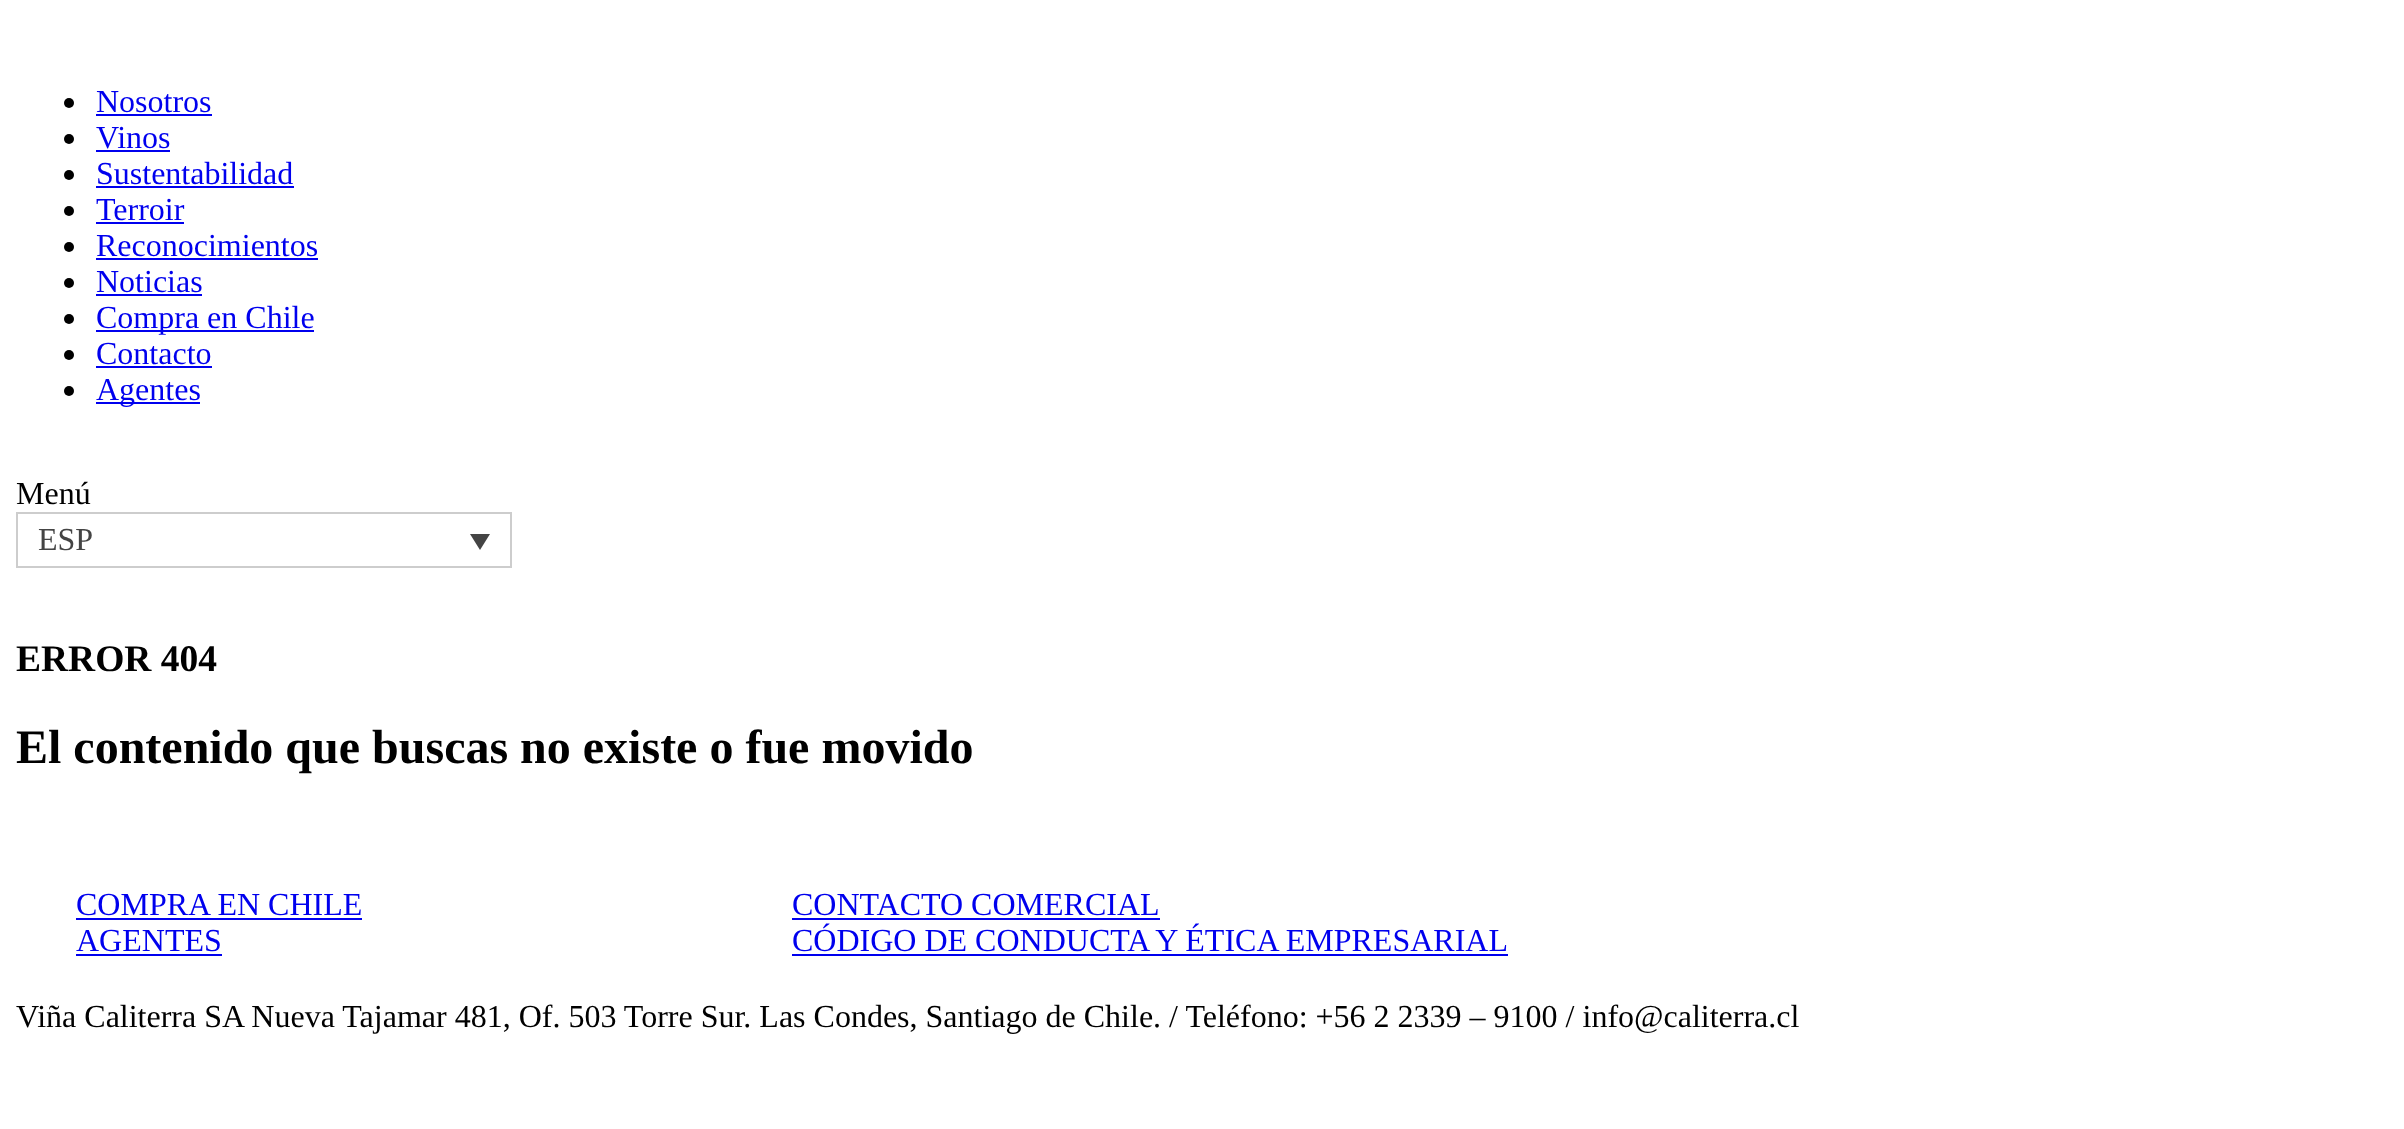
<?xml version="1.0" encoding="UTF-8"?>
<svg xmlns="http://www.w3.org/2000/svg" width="2404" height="1129">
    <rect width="100%" height="100%" fill="#FFFFFF"/>
    <circle cx="69" cy="103" r="5" fill="#000000"/>
    <text x="96" y="112" font-family="Liberation Serif" font-size="32" fill="#0000EE">Nosotros</text>
    <rect x="96" y="114" width="116" height="2" fill="#0000EE"/>
    <circle cx="69" cy="139" r="5" fill="#000000"/>
    <text x="96" y="148" font-family="Liberation Serif" font-size="32" fill="#0000EE">Vinos</text>
    <rect x="96" y="150" width="74" height="2" fill="#0000EE"/>
    <circle cx="69" cy="175" r="5" fill="#000000"/>
    <text x="96" y="184" font-family="Liberation Serif" font-size="32" fill="#0000EE">Sustentabilidad</text>
    <rect x="96" y="186" width="198" height="2" fill="#0000EE"/>
    <circle cx="69" cy="211" r="5" fill="#000000"/>
    <text x="96" y="220" font-family="Liberation Serif" font-size="32" fill="#0000EE">Terroir</text>
    <rect x="96" y="222" width="88" height="2" fill="#0000EE"/>
    <circle cx="69" cy="247" r="5" fill="#000000"/>
    <text x="96" y="256" font-family="Liberation Serif" font-size="32" fill="#0000EE">Reconocimientos</text>
    <rect x="96" y="258" width="222" height="2" fill="#0000EE"/>
    <circle cx="69" cy="283" r="5" fill="#000000"/>
    <text x="96" y="292" font-family="Liberation Serif" font-size="32" fill="#0000EE">Noticias</text>
    <rect x="96" y="294" width="106" height="2" fill="#0000EE"/>
    <circle cx="69" cy="319" r="5" fill="#000000"/>
    <rect x="96" y="330" width="218" height="2" fill="#0000EE"/>
    <text x="96" y="328" font-family="Liberation Serif" font-size="32" fill="#0000EE">Compra en Chile</text>
    <circle cx="69" cy="355" r="5" fill="#000000"/>
    <text x="96" y="364" font-family="Liberation Serif" font-size="32" fill="#0000EE">Contacto</text>
    <rect x="96" y="366" width="116" height="2" fill="#0000EE"/>
    <circle cx="69" cy="391" r="5" fill="#000000"/>
    <rect x="96" y="402" width="104" height="2" fill="#0000EE"/>
    <text x="96" y="400" font-family="Liberation Serif" font-size="32" fill="#0000EE">Agentes</text>
    <text x="16" y="504" font-family="Liberation Serif" font-size="32" fill="#000000">Menú</text>
    <rect x="17" y="513" width="494" height="54" fill="none" stroke="#CDCDCD" stroke-width="2"/>
    <text x="38" y="550" font-family="Liberation Serif" font-size="32" fill="#444444">ESP</text>
    <path d="M 470 534 H 490 L 480 550 Z" fill="#444444"/>
    <text x="16" y="671" font-family="Liberation Serif" font-size="37.5" font-weight="700" fill="#000000">ERROR 404</text>
    <text x="16" y="763" font-family="Liberation Serif" font-size="48" font-weight="700" fill="#000000">El contenido que buscas no existe o fue movido</text>
    <text x="76" y="915" font-family="Liberation Serif" font-size="32" fill="#0000EE">COMPRA EN CHILE</text>
    <rect x="76" y="918" width="286" height="2" fill="#0000EE"/>
    <text x="792" y="915" font-family="Liberation Serif" font-size="32" fill="#0000EE">CONTACTO COMERCIAL</text>
    <rect x="792" y="918" width="368" height="2" fill="#0000EE"/>
    <text x="76" y="951" font-family="Liberation Serif" font-size="32" fill="#0000EE">AGENTES</text>
    <rect x="76" y="954" width="146" height="2" fill="#0000EE"/>
    <text x="792" y="951" font-family="Liberation Serif" font-size="32" fill="#0000EE">CÓDIGO DE CONDUCTA Y ÉTICA EMPRESARIAL</text>
    <rect x="792" y="954" width="716" height="2" fill="#0000EE"/>
    <text x="16" y="1027" font-family="Liberation Serif" font-size="32" fill="#000000">Viña Caliterra SA Nueva Tajamar 481, Of. 503 Torre Sur. Las Condes, Santiago de Chile. / Teléfono: +56 2 2339 – 9100 / info@caliterra.cl</text>
</svg>
